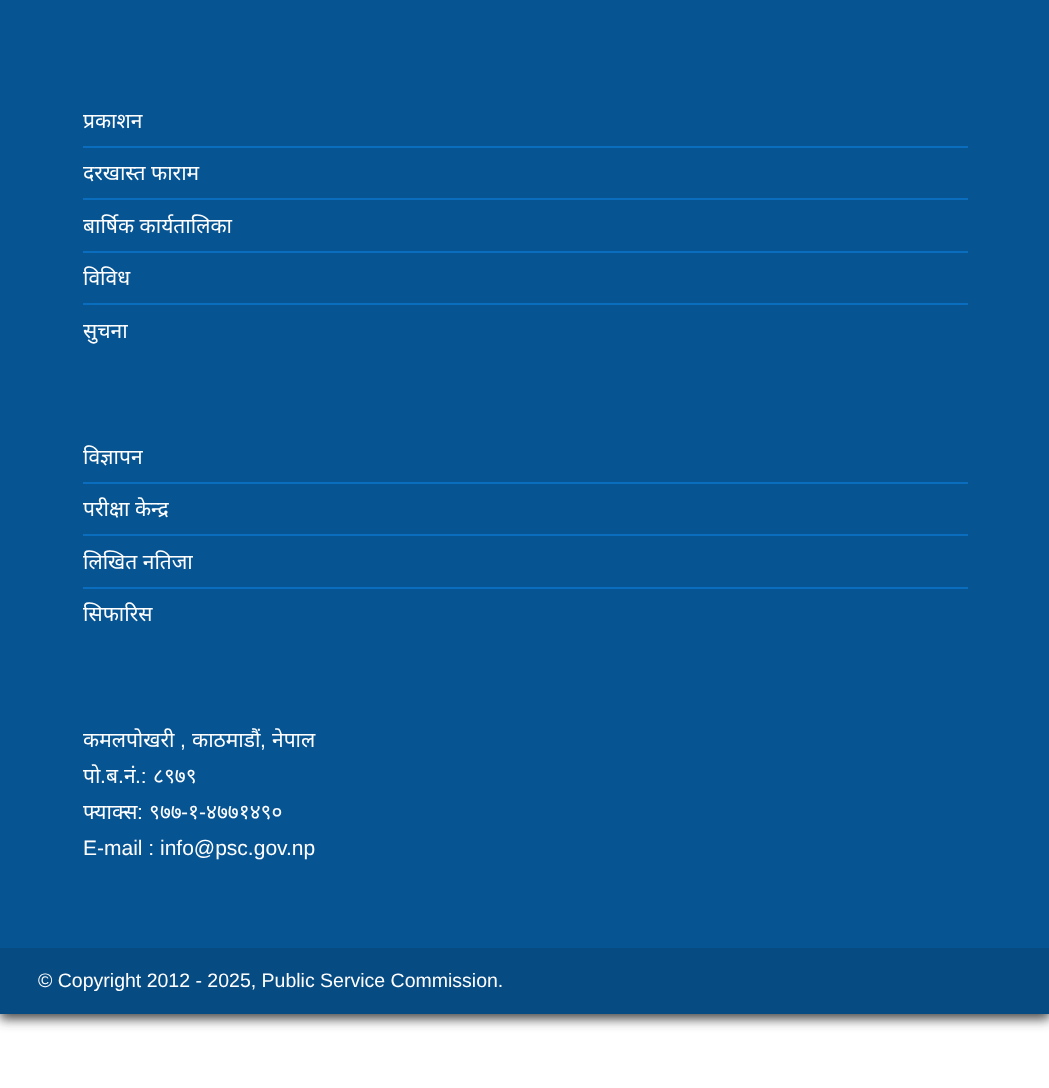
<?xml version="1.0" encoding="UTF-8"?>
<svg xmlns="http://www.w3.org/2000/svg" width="1049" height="1088">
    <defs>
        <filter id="blur1" x="-50%" y="-200%" width="200%" height="500%"><feGaussianBlur stdDeviation="6"/></filter>
    </defs>
    <rect width="100%" height="100%" fill="#FFFFFF"/>
    <rect x="0" y="-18" width="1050" height="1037" fill="#4A4A4A" filter="url(#blur1)"/>
    <rect x="0" y="0" width="1049" height="948" fill="#075493"/>
    <text x="83" y="128" font-family="Noto Sans" font-size="21" fill="#FFFFFF">प्रकाशन</text>
    <rect x="83" y="146" width="885" height="2" fill="#0A6DBE"/>
    <text x="83" y="180" font-family="Noto Sans" font-size="21" fill="#FFFFFF">दरखास्त फाराम</text>
    <rect x="83" y="198" width="885" height="2" fill="#0A6DBE"/>
    <text x="83" y="233" font-family="Noto Sans" font-size="21" fill="#FFFFFF">बार्षिक कार्यतालिका</text>
    <rect x="83" y="251" width="885" height="2" fill="#0A6DBE"/>
    <text x="83" y="285" font-family="Noto Sans" font-size="21" fill="#FFFFFF">विविध</text>
    <rect x="83" y="303" width="885" height="2" fill="#0A6DBE"/>
    <text x="83" y="338" font-family="Noto Sans" font-size="21" fill="#FFFFFF">सुचना</text>
    <text x="83" y="464" font-family="Noto Sans" font-size="21" fill="#FFFFFF">विज्ञापन</text>
    <rect x="83" y="482" width="885" height="2" fill="#0A6DBE"/>
    <text x="83" y="516" font-family="Noto Sans" font-size="21" fill="#FFFFFF">परीक्षा केन्द्र</text>
    <rect x="83" y="534" width="885" height="2" fill="#0A6DBE"/>
    <text x="83" y="569" font-family="Noto Sans" font-size="21" fill="#FFFFFF">लिखित नतिजा</text>
    <rect x="83" y="587" width="885" height="2" fill="#0A6DBE"/>
    <text x="83" y="621" font-family="Noto Sans" font-size="21" fill="#FFFFFF">सिफारिस</text>
    <text x="83" y="747" font-family="Noto Sans" font-size="21" fill="#FFFFFF">कमलपोखरी</text>
    <text x="180" y="747" font-family="Liberation Sans" font-size="21" fill="#FFFFFF">,</text>
    <text x="192" y="747" font-family="Noto Sans" font-size="21" fill="#FFFFFF">काठमाडौं</text>
    <text x="260" y="747" font-family="Liberation Sans" font-size="21" fill="#FFFFFF">,</text>
    <text x="272" y="747" font-family="Noto Sans" font-size="21" fill="#FFFFFF">नेपाल</text>
    <text x="83" y="783" font-family="Noto Sans" font-size="21" fill="#FFFFFF">पो</text>
    <text x="100" y="783" font-family="Liberation Sans" font-size="21" fill="#FFFFFF">.</text>
    <text x="106" y="783" font-family="Noto Sans" font-size="21" fill="#FFFFFF">ब</text>
    <text x="118" y="783" font-family="Liberation Sans" font-size="21" fill="#FFFFFF">.</text>
    <text x="124" y="783" font-family="Noto Sans" font-size="21" fill="#FFFFFF">नं</text>
    <text x="135" y="783" font-family="Liberation Sans" font-size="21" fill="#FFFFFF">.:</text>
    <text x="153" y="783" font-family="Noto Sans" font-size="21" fill="#FFFFFF">८९७९</text>
    <text x="83" y="819" font-family="Noto Sans" font-size="21" fill="#FFFFFF">फ्याक्स</text>
    <text x="137" y="819" font-family="Liberation Sans" font-size="21" fill="#FFFFFF">:</text>
    <text x="149" y="819" font-family="Noto Sans" font-size="21" fill="#FFFFFF">९७७</text>
    <text x="181" y="819" font-family="Liberation Sans" font-size="21" fill="#FFFFFF">-</text>
    <text x="188" y="819" font-family="Noto Sans" font-size="21" fill="#FFFFFF">१</text>
    <text x="199" y="819" font-family="Liberation Sans" font-size="21" fill="#FFFFFF">-</text>
    <text x="206" y="819" font-family="Noto Sans" font-size="21" fill="#FFFFFF">४७७१४९०</text>
    <text x="83" y="855" font-family="Liberation Sans" font-size="21" fill="#FFFFFF">E-mail : info@psc.gov.np</text>
    <rect x="0" y="948" width="1049" height="66" fill="#074B83"/>
    <text x="38" y="987" font-family="Liberation Sans" font-size="19.5" fill="#FFFFFF">© Copyright 2012 - 2025, Public Service Commission.</text>
</svg>
